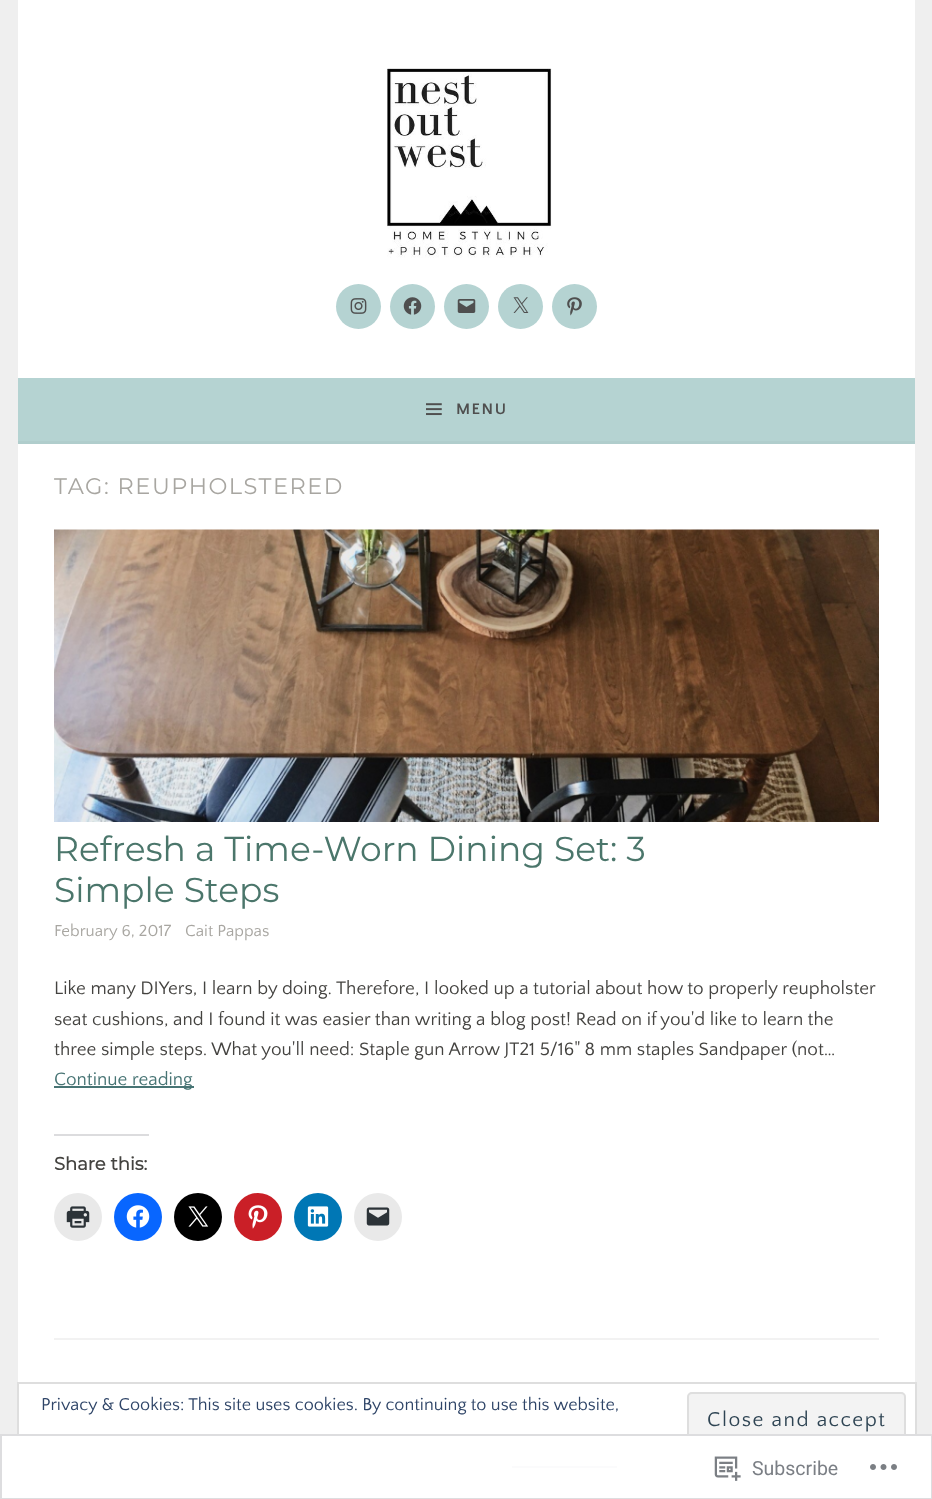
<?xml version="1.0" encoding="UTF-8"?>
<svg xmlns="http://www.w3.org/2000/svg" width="932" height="1499">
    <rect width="100%" height="100%" fill="#EFEFEF"/>
    <rect x="18" y="0" width="897" height="378" fill="#FFFFFF"/>
    <image x="387" y="68" width="165" height="190" href="img_01.png"/>
    <circle cx="358.5" cy="306.5" r="22.5" fill="#B5D3D2"/>
    <image x="350" y="298" width="17" height="16" href="img_02.png"/>
    <circle cx="412.5" cy="306.5" r="22.5" fill="#B5D3D2"/>
    <image x="403" y="297" width="19" height="18" href="img_03.png"/>
    <circle cx="466.5" cy="306.5" r="22.5" fill="#B5D3D2"/>
    <image x="457" y="299" width="19" height="14" href="img_04.png"/>
    <circle cx="520.5" cy="306.5" r="22.5" fill="#B5D3D2"/>
    <image x="513" y="297" width="16" height="16" href="img_05.png"/>
    <circle cx="574.5" cy="306.5" r="22.5" fill="#B5D3D2"/>
    <image x="567" y="297" width="15" height="19" href="img_06.png"/>
    <rect x="18" y="378" width="897" height="63" fill="#B5D3D2"/>
    <rect x="18" y="441" width="897" height="3" fill="#B0CDCC"/>
    <image x="426" y="403" width="16" height="13" href="img_07.png"/>
    <text x="456" y="414" font-family="Quattrocento Sans" font-size="16" font-weight="700" letter-spacing="1.5" fill="#4F4F4F">MENU</text>
    <rect x="18" y="444" width="897" height="1055" fill="#FFFFFF"/>
    <text x="54" y="494" font-family="Montserrat" font-size="22.5" font-weight="100" letter-spacing="1.5" fill="#A8A6A1">TAG: REUPHOLSTERED</text>
    <image x="54" y="529" width="825" height="293" href="img_08.png"/>
    <text font-family="Montserrat" font-size="34.5" font-weight="100" fill="#4B766B">
        <tspan x="54" y="861">Refresh a Time-Worn Dining Set: 3</tspan>
        <tspan x="54" y="902">Simple Steps</tspan>
    </text>
    <text x="54" y="936" font-family="Quattrocento Sans" font-size="16.75" fill="#A8A6A1">February 6, 2017</text>
    <text x="185" y="936" font-family="Quattrocento Sans" font-size="16.75" fill="#A8A6A1">Cait Pappas</text>
    <text font-family="Quattrocento Sans" font-size="18.9" fill="#444340">
        <tspan x="54" y="994">Like many DIYers, I learn by doing. Therefore, I looked up a tutorial about how to properly reupholster</tspan>
        <tspan x="54" y="1025">seat cushions, and I found it was easier than writing a blog post! Read on if you'd like to learn the</tspan>
        <tspan x="54" y="1055">three simple steps. What you'll need: Staple gun Arrow JT21 5/16" 8 mm staples Sandpaper (not…</tspan>
    </text>
    <rect x="54" y="1086" width="140" height="2" fill="#477474"/>
    <text x="54" y="1085" font-family="Quattrocento Sans" font-size="18.9" fill="#477474">Continue reading</text>
    <rect x="54" y="1134" width="95" height="2" fill="#DCDCDE"/>
    <text x="54" y="1170" font-family="Montserrat" font-size="18" font-weight="700" fill="#444340">Share this:</text>
    <circle cx="78" cy="1217" r="24" fill="#E9E9E9"/>
    <image x="66" y="1206" width="24" height="22" href="img_09.png"/>
    <circle cx="138" cy="1217" r="24" fill="#0866FF"/>
    <image x="126" y="1205" width="24" height="23" href="img_10.png"/>
    <circle cx="198" cy="1217" r="24" fill="#000000"/>
    <image x="188" y="1206" width="21" height="21" href="img_11.png"/>
    <circle cx="258" cy="1217" r="24" fill="#CA1F27"/>
    <image x="248" y="1205" width="20" height="24" href="img_12.png"/>
    <circle cx="318" cy="1217" r="24" fill="#0077B5"/>
    <image x="307" y="1206" width="22" height="21" href="img_13.png"/>
    <circle cx="378" cy="1217" r="24" fill="#E9E9E9"/>
    <image x="366" y="1207" width="24" height="19" href="img_14.png"/>
    <rect x="54" y="1338" width="825" height="2" fill="#F2F2F2"/>
    <rect x="18" y="1383" width="898" height="100" fill="none" stroke="#DEDEDE" stroke-width="2"/>
    <text x="41" y="1410" font-family="Quattrocento Sans" font-size="18" fill="#2E4467">Privacy &amp; Cookies: This site uses cookies. By continuing to use this website,</text>
    <rect x="687" y="1392" width="219" height="59" rx="5" fill="#F3F3F3"/>
    <path d="M 689 1445 V 1446 C 689 1448 690 1449 692 1449 H 902 C 904 1449 905 1448 905 1446 V 1397 C 905 1396 905 1395 904 1395 V 1443 C 904 1445 903 1446 902 1446 H 692 C 691 1446 690 1446 689 1445 Z" fill="#DBDBDB"/>
    <rect x="688" y="1393" width="217" height="57" rx="4" fill="none" stroke="#DEDEDE" stroke-width="2"/>
    <text x="707" y="1426" font-family="Quattrocento Sans" font-size="21" letter-spacing="1.5" fill="#2E4453">Close and accept</text>
    <rect x="512" y="1466" width="105" height="2" fill="#2E4467"/>
    <rect x="0" y="1434" width="932" height="65" fill="#FFFFFF" fill-opacity="0.98"/>
    <rect x="1" y="1435" width="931" height="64" fill="none" stroke="#DCDCDE" stroke-opacity="0.98" stroke-width="2"/>
    <image x="714" y="1456" width="27" height="25" href="img_15.png"/>
    <text x="752" y="1475" font-family="Roboto" font-size="19.5" fill="#7B7F85">Subscribe</text>
    <image x="870" y="1464" width="27" height="6" href="img_16.png"/>
</svg>
